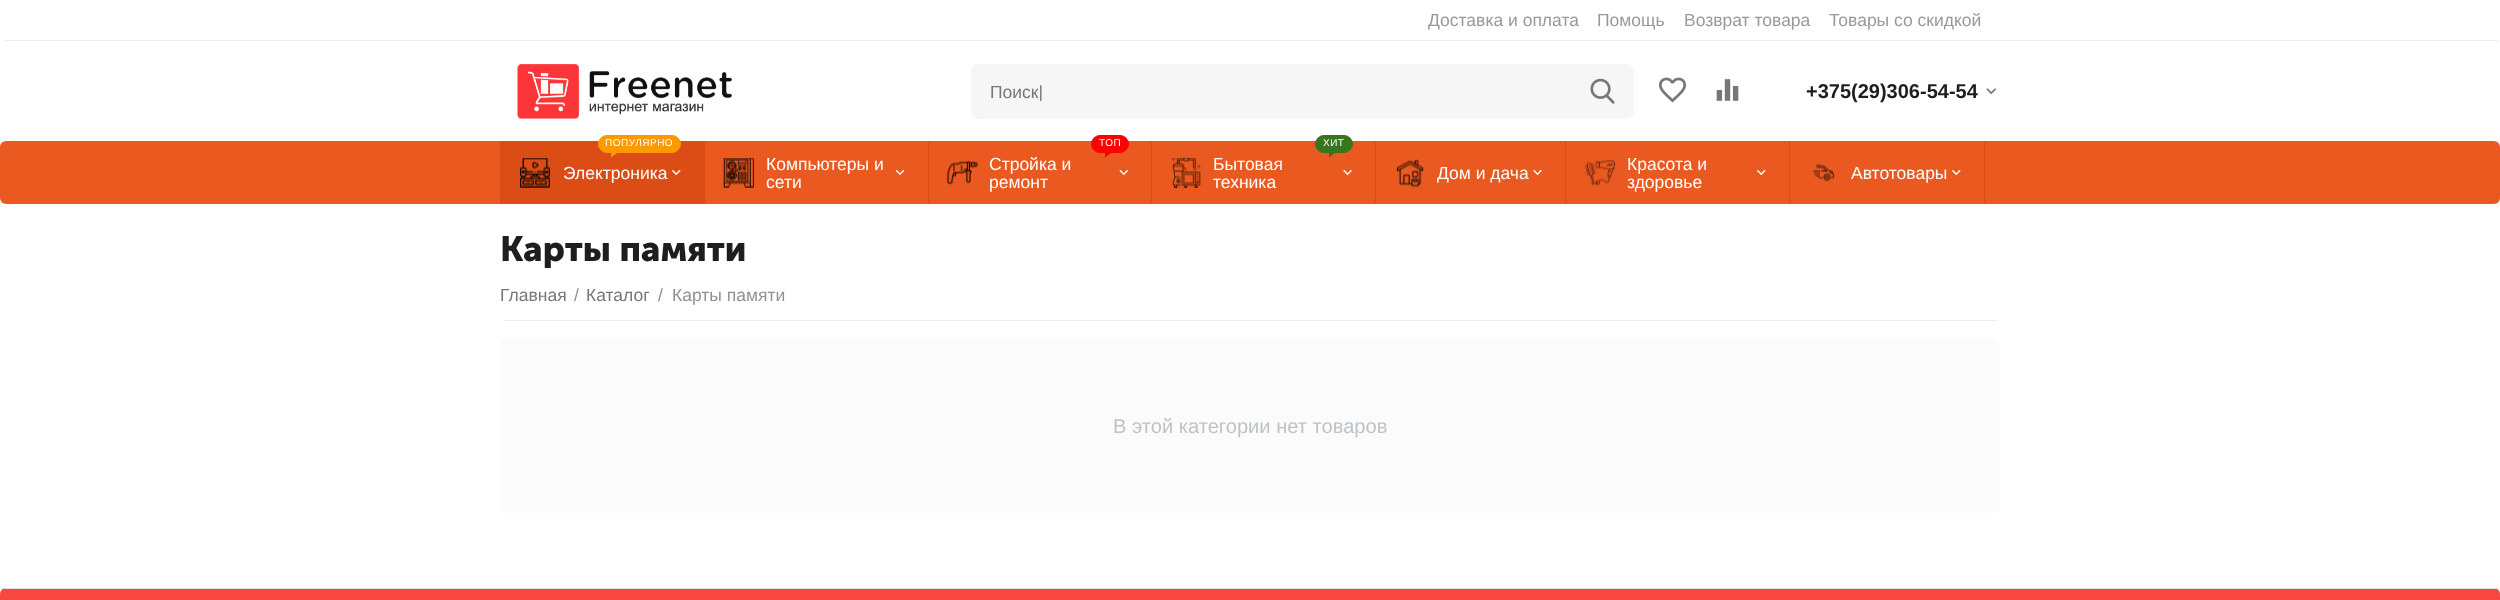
<?xml version="1.0" encoding="UTF-8"?>
<svg xmlns="http://www.w3.org/2000/svg" width="2500" height="600">
    <defs>
        <clipPath id="clip1"><rect x="990" y="81" width="594" height="20"/></clipPath>
        <linearGradient id="g1" gradientUnits="userSpaceOnUse" x1="1250" y1="587" x2="1250" y2="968"><stop offset="0" stop-color="#F94741"/><stop offset="1" stop-color="#EA5920"/></linearGradient>
    </defs>
    <rect width="100%" height="100%" fill="#FFFFFF"/>
    <rect x="4" y="40" width="2494" height="1" fill="#EEEEEE"/>
    <text x="1428" y="26" font-family="Liberation Sans" font-size="17.5" fill="#999999">Доставка и оплата</text>
    <text x="1597" y="26" font-family="Liberation Sans" font-size="17.5" fill="#999999">Помощь</text>
    <text x="1684" y="26" font-family="Liberation Sans" font-size="17.5" fill="#999999">Возврат товара</text>
    <text x="1829" y="26" font-family="Liberation Sans" font-size="17.5" fill="#999999">Товары со скидкой</text>
    <image x="517" y="64" width="215" height="55" href="img_01.png"/>
    <rect x="971" y="64" width="663" height="55" rx="8" fill="#F6F6F6"/>
    <g clip-path="url(#clip1)">
        <text x="990" y="98" font-family="Liberation Sans" font-size="17.5" fill="#777777">Поиск|</text>
    </g>
    <image x="1590" y="78" width="25" height="26" href="img_02.png"/>
    <image x="1659" y="77" width="27" height="26" href="img_03.png"/>
    <image x="1716" y="79" width="23" height="22" href="img_04.png"/>
    <text x="1806" y="98" font-family="Liberation Sans" font-size="20" font-weight="700" fill="#1E1E1E">+375(29)306-54-54</text>
    <image x="1986" y="88" width="11" height="7" href="img_05.png"/>
    <rect x="0" y="141" width="2500" height="63" rx="6" fill="#EA5920"/>
    <rect x="500" y="141" width="205" height="63" fill="#DC4D15"/>
    <image x="520" y="158" width="30" height="30" href="img_06.png"/>
    <rect x="598.5" y="135.5" width="82" height="17" rx="8.5" fill="#FF9900" stroke="#FF9900"/>
    <text x="605" y="146" font-family="Liberation Sans" font-size="10" letter-spacing="0.5" fill="#FFFFFF">ПОПУЛЯРНО</text>
    <path d="M 611 151 H 620 L 611 157.5 Z" fill="#FF9900"/>
    <text x="563" y="179" font-family="Liberation Sans" font-size="17.5" fill="#FFFFFF">Электроника</text>
    <image x="672" y="169" width="9" height="7" href="img_07.png"/>
    <rect x="928" y="141" width="1" height="63" fill="#DC4D15"/>
    <image x="723" y="158" width="31" height="30" href="img_08.png"/>
    <text font-family="Liberation Sans" font-size="17.5" fill="#FFFFFF">
        <tspan x="766" y="170">Компьютеры и</tspan>
        <tspan x="766" y="188">сети</tspan>
    </text>
    <image x="895" y="169" width="10" height="6" href="img_09.png"/>
    <rect x="1151" y="141" width="1" height="63" fill="#DC4D15"/>
    <image x="947" y="160" width="31" height="25" href="img_10.png"/>
    <rect x="1091.5" y="135.5" width="37" height="17" rx="8.5" fill="#FF0000" stroke="#FF0000"/>
    <text x="1099" y="146" font-family="Liberation Sans" font-size="10" letter-spacing="0.5" fill="#FFFFFF">ТОП</text>
    <path d="M 1105 151 H 1114 L 1105 157.5 Z" fill="#FF0000"/>
    <text font-family="Liberation Sans" font-size="17.5" fill="#FFFFFF">
        <tspan x="989" y="170">Стройка и</tspan>
        <tspan x="989" y="188">ремонт</tspan>
    </text>
    <image x="1119" y="169" width="9" height="7" href="img_11.png"/>
    <rect x="1375" y="141" width="1" height="63" fill="#DC4D15"/>
    <image x="1171" y="158" width="30" height="30" href="img_12.png"/>
    <rect x="1315.5" y="135.5" width="37" height="17" rx="8.5" fill="#38761D" stroke="#38761D"/>
    <text x="1323" y="146" font-family="Liberation Sans" font-size="10" letter-spacing="0.5" fill="#FFFFFF">ХИТ</text>
    <path d="M 1329 151 H 1337.5 L 1329 157.5 Z" fill="#38761D"/>
    <text font-family="Liberation Sans" font-size="17.5" fill="#FFFFFF">
        <tspan x="1213" y="170">Бытовая</tspan>
        <tspan x="1213" y="188">техника</tspan>
    </text>
    <image x="1343" y="169" width="9" height="7" href="img_13.png"/>
    <rect x="1565" y="141" width="1" height="63" fill="#DC4D15"/>
    <image x="1396" y="159" width="28" height="29" href="img_14.png"/>
    <text x="1437" y="179" font-family="Liberation Sans" font-size="17.5" fill="#FFFFFF">Дом и дача</text>
    <image x="1533" y="169" width="9" height="7" href="img_13.png"/>
    <rect x="1789" y="141" width="1" height="63" fill="#DC4D15"/>
    <image x="1585" y="159" width="30" height="27" href="img_15.png"/>
    <text font-family="Liberation Sans" font-size="17.5" fill="#FFFFFF">
        <tspan x="1627" y="170">Красота и</tspan>
        <tspan x="1627" y="188">здоровье</tspan>
    </text>
    <image x="1757" y="169" width="9" height="7" href="img_16.png"/>
    <rect x="1984" y="141" width="1" height="63" fill="#DC4D15"/>
    <image x="1813" y="164" width="22" height="18" href="img_17.png"/>
    <text x="1851" y="179" font-family="Liberation Sans" font-size="17.5" fill="#FFFFFF">Автотовары</text>
    <image x="1952" y="169" width="9" height="7" href="img_16.png"/>
    <text x="500" y="261" font-family="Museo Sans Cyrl" font-size="35" font-weight="700" fill="#1E1E1E">Карты памяти</text>
    <rect x="504" y="320" width="1494" height="1" fill="#EEEEEE"/>
    <text x="500" y="301" font-family="Liberation Sans" font-size="17.5" fill="#777777">Главная</text>
    <text x="574" y="301" font-family="Liberation Sans" font-size="17.5" fill="#919191">/</text>
    <text x="586" y="301" font-family="Liberation Sans" font-size="17.5" fill="#777777">Каталог</text>
    <text x="658" y="301" font-family="Liberation Sans" font-size="17.5" fill="#919191">/</text>
    <text x="672" y="301" font-family="Liberation Sans" font-size="17.5" fill="#919191">Карты памяти</text>
    <rect x="500" y="339" width="1500" height="174" rx="6" fill="#FBFBFB"/>
    <text x="1113" y="433" font-family="Liberation Sans" font-size="20.1" fill="#BDC3C7">В этой категории нет товаров</text>
    <rect x="0" y="588" width="2500" height="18" rx="6" fill="url(#g1)"/>
    <rect x="4" y="588" width="2494" height="1" fill="#E1E1E1"/>
</svg>
